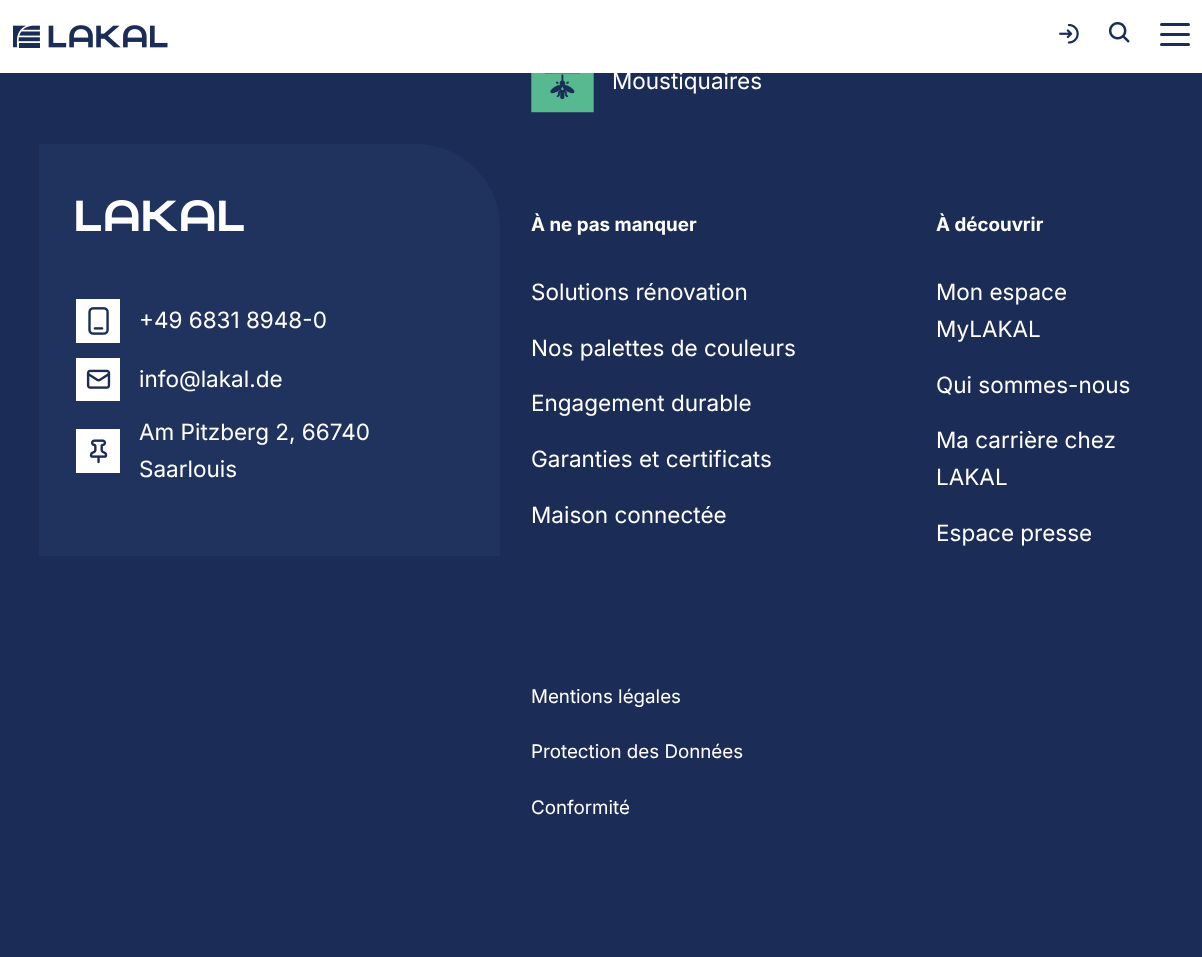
<?xml version="1.0" encoding="UTF-8"?>
<svg xmlns="http://www.w3.org/2000/svg" width="1202" height="957">
    <rect width="100%" height="100%" fill="#1B2C56"/>
    <rect x="0" y="0" width="1202" height="73" fill="#FFFFFF"/>
    <image x="13" y="25" width="155" height="23" href="img_01.png"/>
    <image x="1059" y="24" width="20" height="20" href="img_02.png"/>
    <image x="1109" y="22" width="21" height="21" href="img_03.png"/>
    <rect x="1160" y="23" width="30" height="3" rx="1.5" fill="#1B2C56"/>
    <rect x="1160" y="33" width="30" height="3" rx="1.5" fill="#1B2C56"/>
    <rect x="1160" y="43" width="30" height="3" rx="1.5" fill="#1B2C56"/>
    <path d="M 39 144 H 416 C 462.5 144 500 181.5 500 228 V 556 H 39 Z" fill="#20335F"/>
    <image x="76" y="200" width="168" height="31" href="img_04.png"/>
    <rect x="76" y="299" width="44" height="44" fill="#FFFFFF"/>
    <image x="88" y="307" width="21" height="28" href="img_05.png"/>
    <text x="139" y="328" font-family="Inter" font-size="22.5" fill="#FFFFFF">+49 6831 8948-0</text>
    <rect x="76" y="358" width="44" height="43" fill="#FFFFFF"/>
    <image x="86" y="369" width="25" height="20" href="img_06.png"/>
    <text x="139" y="387" font-family="Inter" font-size="22.5" fill="#FFFFFF">info@lakal.de</text>
    <rect x="76" y="429" width="44" height="44" fill="#FFFFFF"/>
    <image x="89" y="439" width="19" height="25" href="img_07.png"/>
    <text font-family="Inter" font-size="22.5" fill="#FFFFFF">
        <tspan x="139" y="440">Am Pitzberg 2, 66740</tspan>
        <tspan x="139" y="477">Saarlouis</tspan>
    </text>
    <image x="531" y="73" width="63" height="40" href="img_08.png"/>
    <text x="612" y="89" font-family="Inter" font-size="22.5" fill="#FFFFFF">Moustiquaires</text>
    <text x="531" y="231" font-family="Inter" font-size="18.75" font-weight="700" fill="#FFFFFF">À ne pas manquer</text>
    <text x="531" y="300" font-family="Inter" font-size="22.5" fill="#FFFFFF">Solutions rénovation</text>
    <text x="531" y="356" font-family="Inter" font-size="22.5" fill="#FFFFFF">Nos palettes de couleurs</text>
    <text x="531" y="411" font-family="Inter" font-size="22.5" fill="#FFFFFF">Engagement durable</text>
    <text x="531" y="467" font-family="Inter" font-size="22.5" fill="#FFFFFF">Garanties et certificats</text>
    <text x="531" y="523" font-family="Inter" font-size="22.5" fill="#FFFFFF">Maison connectée</text>
    <text x="936" y="231" font-family="Inter" font-size="18.75" font-weight="700" fill="#FFFFFF">À découvrir</text>
    <text font-family="Inter" font-size="22.5" fill="#FFFFFF">
        <tspan x="936" y="300">Mon espace</tspan>
        <tspan x="936" y="337">MyLAKAL</tspan>
    </text>
    <text x="936" y="393" font-family="Inter" font-size="22.5" fill="#FFFFFF">Qui sommes-nous</text>
    <text font-family="Inter" font-size="22.5" fill="#FFFFFF">
        <tspan x="936" y="448">Ma carrière chez</tspan>
        <tspan x="936" y="485">LAKAL</tspan>
    </text>
    <text x="936" y="541" font-family="Inter" font-size="22.5" fill="#FFFFFF">Espace presse</text>
    <text x="531" y="703" font-family="Inter" font-size="18.75" fill="#FFFFFF">Mentions légales</text>
    <text x="531" y="758" font-family="Inter" font-size="18.75" fill="#FFFFFF">Protection des Données</text>
    <text x="531" y="814" font-family="Inter" font-size="18.75" fill="#FFFFFF">Conformité</text>
</svg>
